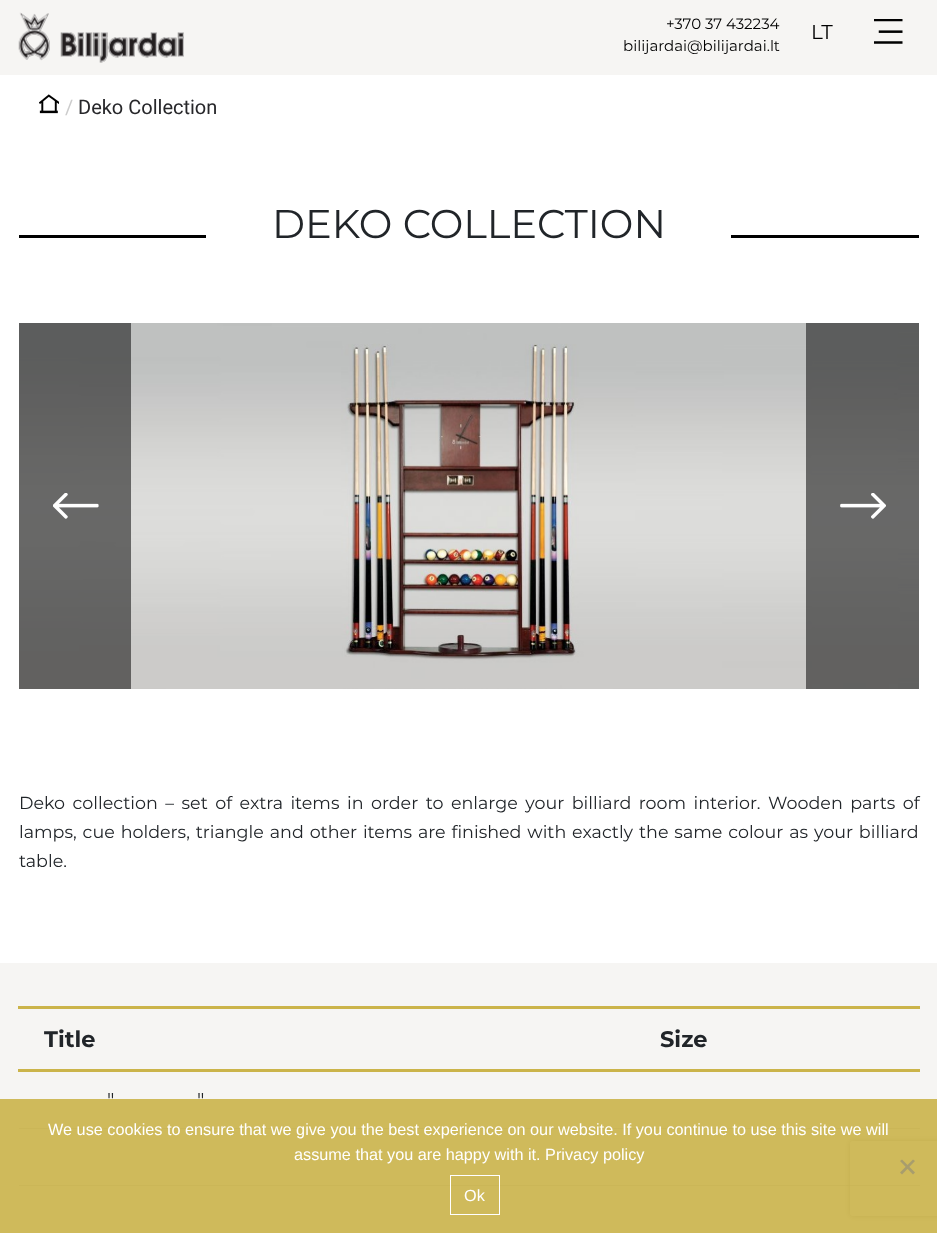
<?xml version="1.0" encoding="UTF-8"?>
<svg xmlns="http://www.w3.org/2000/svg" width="937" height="1233">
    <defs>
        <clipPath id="clip1"><path d="M 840 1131 H 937 V 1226 H 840 Z M 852.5 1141 H 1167.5 C 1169 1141 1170 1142 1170 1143.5 V 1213.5 C 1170 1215 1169 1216 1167.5 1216 H 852.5 C 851 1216 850 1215 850 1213.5 V 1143.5 C 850 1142 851 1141 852.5 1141 Z" clip-rule="evenodd"/></clipPath>
        <filter id="blur1" x="-50%" y="-200%" width="200%" height="500%"><feGaussianBlur stdDeviation="3"/></filter>
    </defs>
    <rect width="100%" height="100%" fill="#FFFFFF"/>
    <rect x="0" y="0" width="937" height="75" fill="#F6F5F3"/>
    <image x="18" y="12" width="166" height="51" href="img_01.png"/>
    <text x="666" y="29" font-family="Montserrat" font-size="15" fill="#000000">+370 37 432234</text>
    <text x="623" y="51" font-family="Montserrat" font-size="15" fill="#000000">bilijardai@bilijardai.lt</text>
    <text x="811" y="39" font-family="Montserrat" font-size="20" fill="#000000">LT</text>
    <image x="874" y="19" width="29" height="25" href="img_02.png"/>
    <image x="39" y="94" width="20" height="20" href="img_03.png"/>
    <text x="65" y="114" font-family="Roboto" font-size="20" fill="#CCCCCC">/</text>
    <text x="78" y="114" font-family="Roboto" font-size="20" fill="#27272A">Deko Collection</text>
    <rect x="19" y="235" width="900" height="3" fill="#000000"/>
    <rect x="206" y="235" width="525" height="3" fill="#FFFFFF"/>
    <text x="272" y="238" font-family="Montserrat" font-size="40" fill="#212529">DEKO COLLECTION</text>
    <image x="19" y="323" width="900" height="366" href="img_04.png"/>
    <rect x="19" y="323" width="112" height="366" fill="#1B1B1B" fill-opacity="0.6"/>
    <image x="53" y="493" width="46" height="26" href="img_05.png"/>
    <rect x="806" y="323" width="113" height="366" fill="#1B1B1B" fill-opacity="0.6"/>
    <image x="840" y="493" width="46" height="26" href="img_06.png"/>
    <text font-family="Montserrat" font-size="17.5" fill="#212529">
        <tspan x="19" y="809" word-spacing="2.9">Deko collection – set of extra items in order to enlarge your billiard room interior. Wooden parts of</tspan>
        <tspan x="19" y="838" word-spacing="1.3">lamps, cue holders, triangle and other items are finished with exactly the same colour as your billiard</tspan>
        <tspan x="19" y="867">table.</tspan>
    </text>
    <rect x="0" y="963" width="937" height="270" fill="#F6F5F3"/>
    <rect x="18" y="1006" width="902" height="3" fill="#CBB44A"/>
    <rect x="18" y="1069" width="902" height="3" fill="#CBB44A"/>
    <text x="44" y="1047" font-family="Montserrat" font-size="22.5" font-weight="700" fill="#212529">Title</text>
    <text x="660" y="1047" font-family="Montserrat" font-size="22.5" font-weight="700" fill="#212529">Size</text>
    <rect x="19" y="1128" width="901" height="1" fill="#CCCCCC"/>
    <text x="107" y="1107" font-family="Montserrat" font-size="20" fill="#212529">"</text>
    <text x="197" y="1107" font-family="Montserrat" font-size="20" fill="#212529">"</text>
    <rect x="19" y="1185" width="901" height="1" fill="#CCCCCC"/>
    <g clip-path="url(#clip1)">
        <rect x="850" y="1141" width="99" height="75" rx="2.5" fill="#808080" filter="url(#blur1)"/>
    </g>
    <rect x="0" y="1099" width="937" height="134" fill="#CBB44A" fill-opacity="0.9"/>
    <text x="48" y="1135" font-family="Liberation Sans" font-size="16.25" fill="#FFFFFF">We use cookies to ensure that we give you the best experience on our website. If you continue to use this site we will</text>
    <text x="294" y="1160" font-family="Liberation Sans" font-size="16.25" fill="#FFFFFF">assume that you are happy with it. Privacy policy</text>
    <path d="M 913 1159.5 L 915 1161 L 902 1174.5 L 900 1172.5 Z" fill="#A89D6D"/>
    <path d="M 900 1161 L 902 1159.5 L 915 1172.5 L 913 1174.5 Z" fill="#A89D6D"/>
    <rect x="450.5" y="1175.5" width="49" height="39" fill="none" stroke="#FFFFFF"/>
    <text x="464" y="1201" font-family="Liberation Sans" font-size="16.25" fill="#FFFFFF">Ok</text>
</svg>
